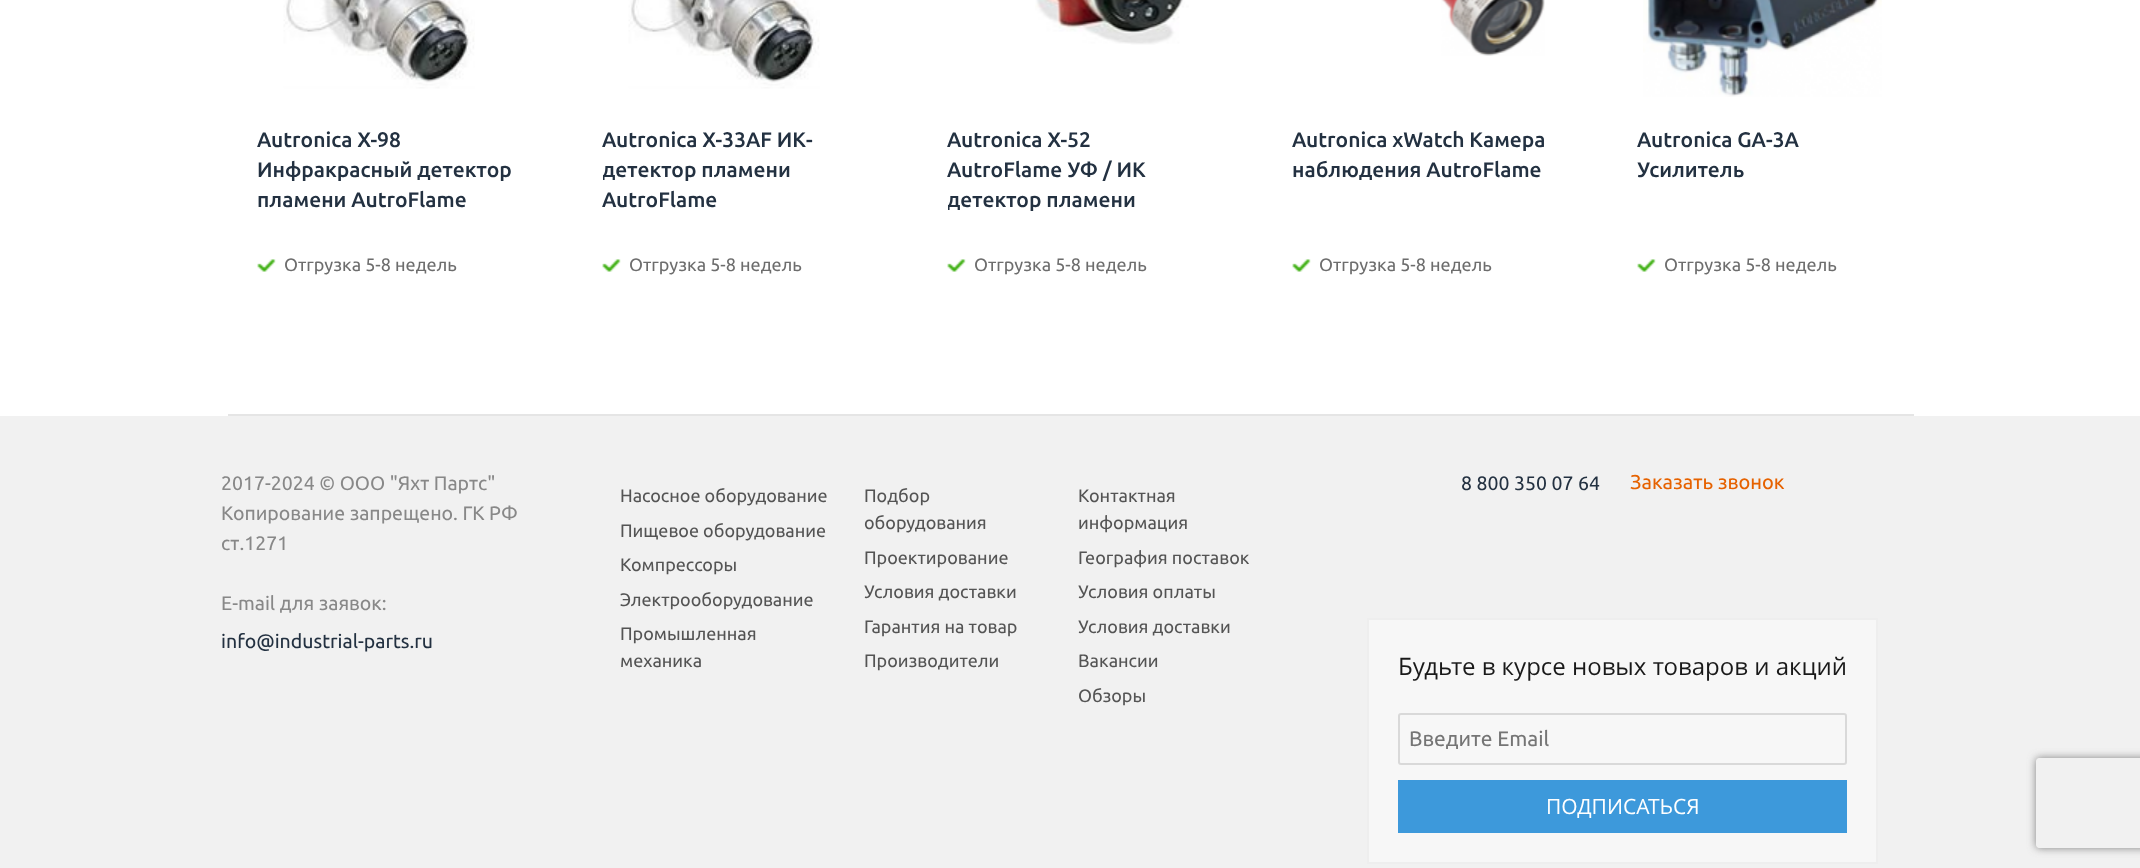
<?xml version="1.0" encoding="UTF-8"?>
<svg xmlns="http://www.w3.org/2000/svg" width="2140" height="868">
    <defs>
        <clipPath id="clip1"><rect x="603" y="125" width="255" height="120"/></clipPath>
        <clipPath id="clip2"><rect x="948" y="125" width="255" height="120"/></clipPath>
        <clipPath id="clip3"><path d="M 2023 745 H 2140 V 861 H 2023 Z M 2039 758 H 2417 C 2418.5 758 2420 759.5 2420 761 V 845 C 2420 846.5 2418.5 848 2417 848 H 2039 C 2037.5 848 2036 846.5 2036 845 V 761 C 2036 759.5 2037.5 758 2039 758 Z" clip-rule="evenodd"/></clipPath>
        <filter id="blur1" x="-50%" y="-200%" width="200%" height="500%"><feGaussianBlur stdDeviation="4"/></filter>
    </defs>
    <rect width="100%" height="100%" fill="#FFFFFF"/>
    <rect x="228" y="414" width="1686" height="2" fill="#E5E5E5"/>
    <image x="283" y="0" width="192" height="89" href="img_01.png"/>
    <text font-family="Ubuntu" font-size="21" font-weight="500" fill="#233141">
        <tspan x="257" y="147">Autronica X-98</tspan>
        <tspan x="257" y="177">Инфракрасный детектор</tspan>
        <tspan x="257" y="207">пламени AutroFlame</tspan>
    </text>
    <image x="257" y="259" width="19" height="13" href="img_02.png"/>
    <text x="284" y="271" font-family="Ubuntu" font-size="18" fill="#6D6D6D">Отгрузка 5-8 недель</text>
    <image x="628" y="0" width="192" height="89" href="img_01.png"/>
    <text x="602" y="147" font-family="Ubuntu" font-size="21" font-weight="500" fill="#233141">Autronica X-33AF ИК-</text>
    <g clip-path="url(#clip1)">
        <text x="602" y="177" font-family="Ubuntu" font-size="21" font-weight="500" fill="#233141">детектор пламени</text>
    </g>
    <text x="602" y="207" font-family="Ubuntu" font-size="21" font-weight="500" fill="#233141">AutroFlame</text>
    <image x="602" y="259" width="19" height="13" href="img_02.png"/>
    <text x="629" y="271" font-family="Ubuntu" font-size="18" fill="#6D6D6D">Отгрузка 5-8 недель</text>
    <image x="1035" y="0" width="154" height="45" href="img_03.png"/>
    <text font-family="Ubuntu" font-size="21" font-weight="500" fill="#233141">
        <tspan x="947" y="147">Autronica X-52</tspan>
        <tspan x="947" y="177">AutroFlame УФ / ИК</tspan>
    </text>
    <g clip-path="url(#clip2)">
        <text x="947" y="207" font-family="Ubuntu" font-size="21" font-weight="500" fill="#233141">детектор пламени</text>
    </g>
    <image x="947" y="259" width="19" height="13" href="img_02.png"/>
    <text x="974" y="271" font-family="Ubuntu" font-size="18" fill="#6D6D6D">Отгрузка 5-8 недель</text>
    <image x="1441" y="0" width="104" height="56" href="img_04.png"/>
    <text font-family="Ubuntu" font-size="21" font-weight="500" fill="#233141">
        <tspan x="1292" y="147">Autronica xWatch Камера</tspan>
        <tspan x="1292" y="177">наблюдения AutroFlame</tspan>
    </text>
    <image x="1292" y="259" width="19" height="13" href="img_02.png"/>
    <text x="1319" y="271" font-family="Ubuntu" font-size="18" fill="#6D6D6D">Отгрузка 5-8 недель</text>
    <image x="1643" y="0" width="239" height="97" href="img_05.png"/>
    <text font-family="Ubuntu" font-size="21" font-weight="500" fill="#233141">
        <tspan x="1637" y="147">Autronica GA-3A</tspan>
        <tspan x="1637" y="177">Усилитель</tspan>
    </text>
    <image x="1637" y="259" width="19" height="13" href="img_02.png"/>
    <text x="1664" y="271" font-family="Ubuntu" font-size="18" fill="#6D6D6D">Отгрузка 5-8 недель</text>
    <rect x="0" y="416" width="2140" height="452" fill="#F1F1F1"/>
    <text font-family="Ubuntu" font-size="19.5" fill="#888888">
        <tspan x="221" y="490">2017-2024 © ООО "Яхт Партс"</tspan>
        <tspan x="221" y="520">Копирование запрещено. ГК РФ</tspan>
        <tspan x="221" y="550">ст.1271</tspan>
    </text>
    <text x="221" y="610" font-family="Ubuntu" font-size="19.5" fill="#888888">E-mail для заявок:</text>
    <text x="221" y="648" font-family="Ubuntu" font-size="19.5" fill="#233141">info@industrial-parts.ru</text>
    <text font-family="Ubuntu" font-size="18" fill="#545454">
        <tspan x="620" y="502">Насосное оборудование</tspan>
        <tspan x="620" y="537">Пищевое оборудование</tspan>
        <tspan x="620" y="571">Компрессоры</tspan>
        <tspan x="620" y="606">Электрооборудование</tspan>
        <tspan x="620" y="640">Промышленная</tspan>
        <tspan x="620" y="667">механика</tspan>
    </text>
    <text font-family="Ubuntu" font-size="18" fill="#545454">
        <tspan x="864" y="502">Подбор</tspan>
        <tspan x="864" y="529">оборудования</tspan>
        <tspan x="864" y="564">Проектирование</tspan>
        <tspan x="864" y="598">Условия доставки</tspan>
        <tspan x="864" y="633">Гарантия на товар</tspan>
        <tspan x="864" y="667">Производители</tspan>
    </text>
    <text font-family="Ubuntu" font-size="18" fill="#545454">
        <tspan x="1078" y="502">Контактная</tspan>
        <tspan x="1078" y="529">информация</tspan>
        <tspan x="1078" y="564">География поставок</tspan>
        <tspan x="1078" y="598">Условия оплаты</tspan>
        <tspan x="1078" y="633">Условия доставки</tspan>
        <tspan x="1078" y="667">Вакансии</tspan>
        <tspan x="1078" y="702">Обзоры</tspan>
    </text>
    <text x="1461" y="490" font-family="Ubuntu" font-size="19.5" fill="#233141">8 800 350 07 64</text>
    <text x="1630" y="489" font-family="Ubuntu" font-size="20" fill="#E66200">Заказать звонок</text>
    <rect x="1368" y="619" width="509" height="244" fill="#F7F7F7" stroke="#EEEEEE" stroke-width="2"/>
    <text x="1398" y="675" font-family="Open Sans" font-size="24" fill="#191919">Будьте в курсе новых товаров и акций</text>
    <rect x="1399" y="714" width="447" height="50" rx="2" fill="none" stroke="#D9D9D9" stroke-width="2"/>
    <text x="1409" y="746" font-family="Ubuntu" font-size="21" fill="#757575">Введите Email</text>
    <rect x="1398" y="780" width="449" height="53" fill="#3D99DB"/>
    <text x="1546" y="814" font-family="Open Sans" font-size="21" fill="#FFFFFF">ПОДПИСАТЬСЯ</text>
    <g clip-path="url(#clip3)">
        <rect x="2036" y="758" width="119" height="90" rx="3" fill="#808080" filter="url(#blur1)"/>
    </g>
</svg>
